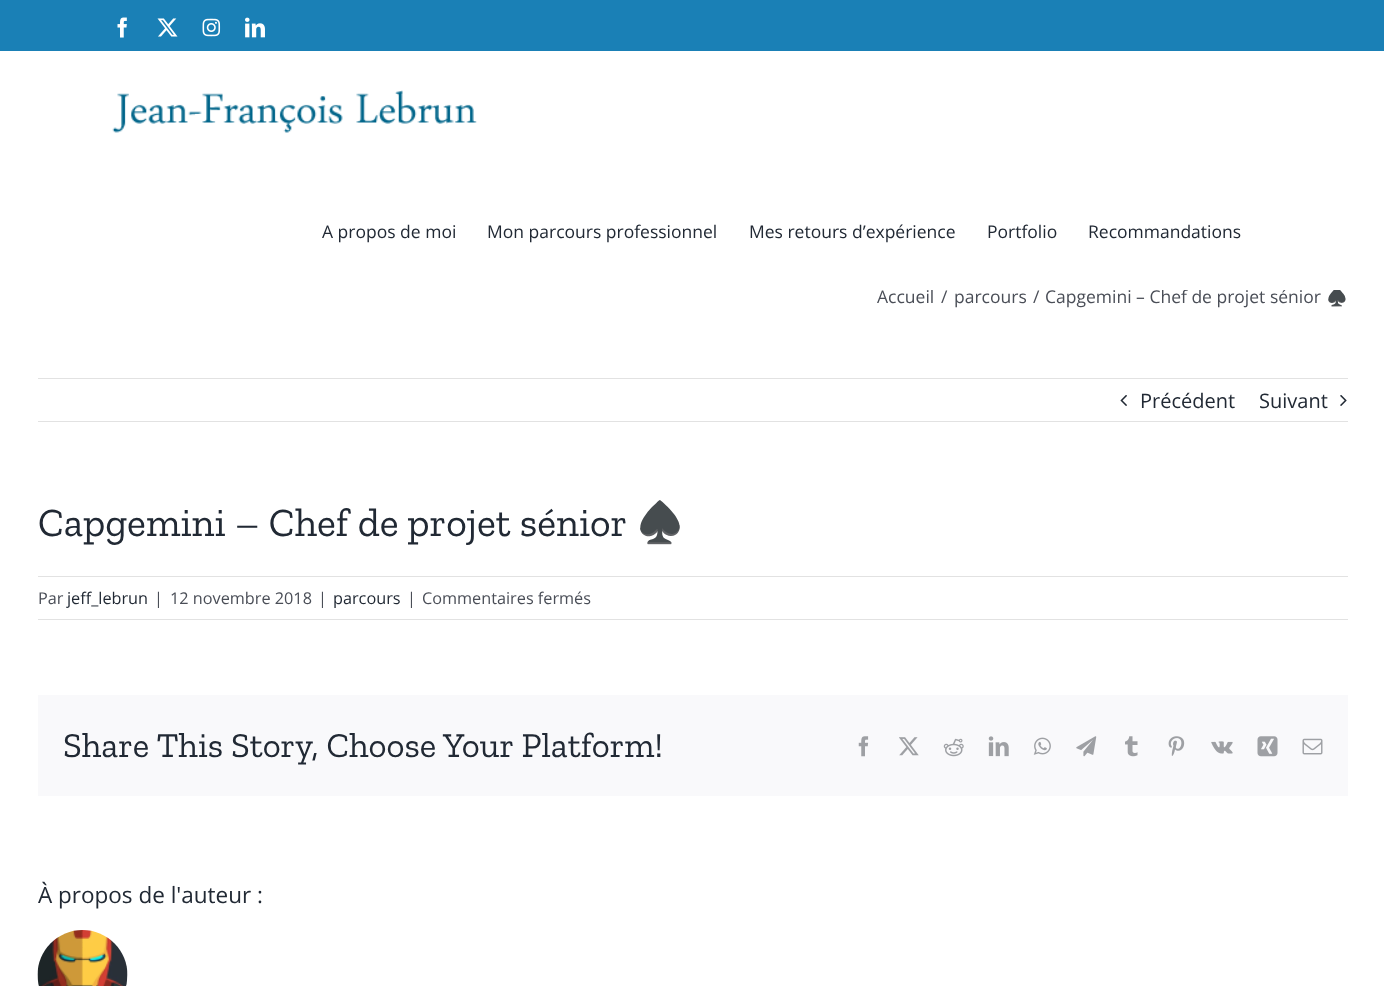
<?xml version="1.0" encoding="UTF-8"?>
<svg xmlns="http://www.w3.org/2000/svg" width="1384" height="986">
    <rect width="100%" height="100%" fill="#FFFFFF"/>
    <rect x="0" y="0" width="1384" height="51" fill="#1A80B6"/>
    <image x="117" y="17" width="10" height="21" href="img_01.png"/>
    <image x="157" y="18" width="21" height="19" href="img_02.png"/>
    <image x="202" y="18" width="19" height="19" href="img_03.png"/>
    <image x="245" y="17" width="20" height="21" href="img_04.png"/>
    <text x="877" y="303" font-family="Open Sans" font-size="17.5" fill="#4A4E57">Accueil</text>
    <text x="1045" y="303" font-family="Open Sans" font-size="17.5" fill="#4A4E57">Capgemini – Chef de projet sénior</text>
    <text x="1326" y="303" font-family="Noto Color Emoji" font-size="17.5" fill="#4A4E57">♠️</text>
    <rect x="931" y="287" width="416" height="3" fill="#FFFFFF"/>
    <image x="112" y="90" width="365" height="43" href="img_05.png"/>
    <text x="322" y="238" font-family="Open Sans" font-size="17.5" fill="#212934">A propos de moi</text>
    <text x="487" y="238" font-family="Open Sans" font-size="17.5" fill="#212934">Mon parcours professionnel</text>
    <text x="749" y="238" font-family="Open Sans" font-size="17.5" fill="#212934">Mes retours d’expérience</text>
    <text x="987" y="238" font-family="Open Sans" font-size="17.5" fill="#212934">Portfolio</text>
    <text x="1088" y="238" font-family="Open Sans" font-size="17.5" fill="#212934">Recommandations</text>
    <text x="941" y="303" font-family="Open Sans" font-size="17.5" fill="#4A4E57">/</text>
    <text x="954" y="303" font-family="Open Sans" font-size="17.5" fill="#4A4E57">parcours</text>
    <text x="1033" y="303" font-family="Open Sans" font-size="17.5" fill="#4A4E57">/</text>
    <rect x="38" y="378" width="1310" height="1" fill="#E2E2E2"/>
    <rect x="38" y="421" width="1310" height="1" fill="#E2E2E2"/>
    <image x="1120" y="395" width="7" height="11" href="img_06.png"/>
    <text x="1140" y="408" font-family="Open Sans" font-size="20" fill="#212934">Précédent</text>
    <text x="1259" y="408" font-family="Open Sans" font-size="20" fill="#212934">Suivant</text>
    <image x="1340" y="395" width="7" height="11" href="img_07.png"/>
    <text x="38" y="536" font-family="Zilla Slab" font-size="40" fill="#212934">Capgemini – Chef de projet sénior</text>
    <text x="635" y="536" font-family="Noto Color Emoji" font-size="40" fill="#212934">♠️</text>
    <rect x="38" y="576" width="1310" height="1" fill="#E2E2E2"/>
    <rect x="38" y="619" width="1310" height="1" fill="#E2E2E2"/>
    <text x="38" y="604" font-family="Open Sans" font-size="16.25" fill="#4A4E57">Par</text>
    <text x="67" y="604" font-family="Open Sans" font-size="16.25" fill="#212934">jeff_lebrun</text>
    <text x="154" y="604" font-family="Open Sans" font-size="16.25" fill="#4A4E57">|</text>
    <text x="170" y="604" font-family="Open Sans" font-size="16.25" fill="#4A4E57">12 novembre 2018</text>
    <text x="318" y="604" font-family="Open Sans" font-size="16.25" fill="#4A4E57">|</text>
    <text x="333" y="604" font-family="Open Sans" font-size="16.25" fill="#212934">parcours</text>
    <text x="407" y="604" font-family="Open Sans" font-size="16.25" fill="#4A4E57">|</text>
    <text x="422" y="604" font-family="Open Sans" font-size="16.25" fill="#4A4E57">Commentaires fermés</text>
    <rect x="38" y="695" width="1310" height="101" fill="#F9F9FB"/>
    <text x="63" y="757" font-family="Zilla Slab" font-size="35" fill="#212934">Share This Story, Choose Your Platform!</text>
    <image x="858" y="736" width="11" height="21" href="img_08.png"/>
    <image x="899" y="737" width="20" height="19" href="img_09.png"/>
    <image x="943" y="738" width="21" height="19" href="img_10.png"/>
    <image x="988" y="736" width="21" height="21" href="img_11.png"/>
    <image x="1033" y="737" width="18" height="18" href="img_12.png"/>
    <image x="1076" y="736" width="21" height="21" href="img_13.png"/>
    <image x="1125" y="736" width="13" height="21" href="img_14.png"/>
    <image x="1168" y="736" width="17" height="20" href="img_15.png"/>
    <image x="1211" y="741" width="22" height="13" href="img_16.png"/>
    <image x="1257" y="736" width="21" height="21" href="img_17.png"/>
    <image x="1302" y="738" width="21" height="17" href="img_18.png"/>
    <text x="38" y="903" font-family="Open Sans" font-size="22.5" fill="#212934">À propos de l'auteur :</text>
    <image x="37" y="930" width="91" height="56" href="img_19.png"/>
</svg>
